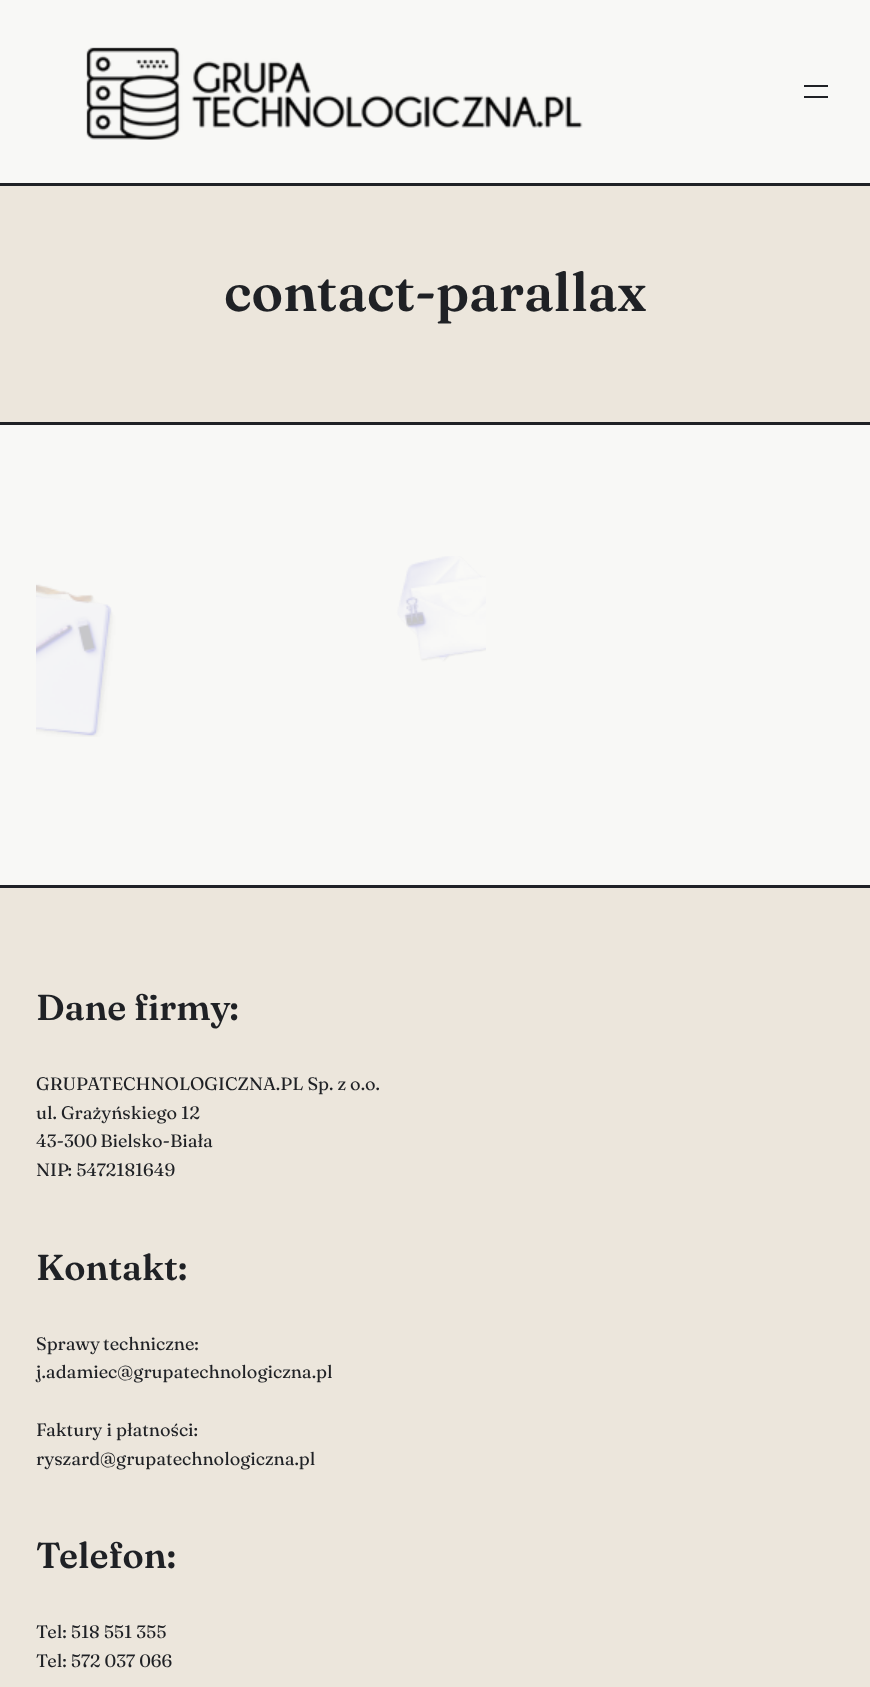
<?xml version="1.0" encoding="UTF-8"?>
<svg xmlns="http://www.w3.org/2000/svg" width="870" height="1687">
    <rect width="100%" height="100%" fill="#F8F8F6"/>
    <rect x="0" y="183" width="870" height="3" fill="#1F2125"/>
    <image x="86" y="47" width="497" height="93" href="img_01.png"/>
    <rect x="804" y="85" width="24" height="2" fill="#1F2125"/>
    <rect x="804" y="96" width="24" height="2" fill="#1F2125"/>
    <rect x="0" y="186" width="870" height="236" fill="#ECE6DC"/>
    <rect x="0" y="422" width="870" height="3" fill="#1F2125"/>
    <text x="224" y="311" font-family="Fraunces" font-size="54" font-weight="600" fill="#1F2125">contact-parallax</text>
    <image x="36" y="556" width="450" height="181" href="img_02.png"/>
    <rect x="0" y="888" width="870" height="799" fill="#ECE6DC"/>
    <rect x="0" y="885" width="870" height="3" fill="#1F2127"/>
    <text x="36" y="1020" font-family="'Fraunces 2'" font-size="36" font-weight="600" fill="#1F2125">Dane firmy:</text>
    <text font-family="Fraunces" font-size="18" fill="#1F2125">
        <tspan x="36" y="1090">GRUPATECHNOLOGICZNA.PL Sp. z o.o.</tspan>
        <tspan x="36" y="1119">ul. Grażyńskiego 12</tspan>
        <tspan x="36" y="1147" word-spacing="-1">43-300 Bielsko-Biała</tspan>
        <tspan x="36" y="1176">NIP: 5472181649</tspan>
    </text>
    <text x="36" y="1280" font-family="'Fraunces 2'" font-size="36" font-weight="600" fill="#1F2125">Kontakt:</text>
    <text font-family="Fraunces" font-size="18" fill="#1F2125">
        <tspan x="36" y="1350" word-spacing="-1">Sprawy techniczne:</tspan>
        <tspan x="36" y="1378">j.adamiec@grupatechnologiczna.pl</tspan>
    </text>
    <text font-family="Fraunces" font-size="18" fill="#1F2125">
        <tspan x="36" y="1436">Faktury i płatności:</tspan>
        <tspan x="36" y="1465">ryszard@grupatechnologiczna.pl</tspan>
    </text>
    <text x="36" y="1568" font-family="'Fraunces 2'" font-size="36" font-weight="600" fill="#1F2125">Telefon:</text>
    <text font-family="Fraunces" font-size="18" fill="#1F2125">
        <tspan x="36" y="1638">Tel: 518 551 355</tspan>
        <tspan x="36" y="1667">Tel: 572 037 066</tspan>
    </text>
</svg>
